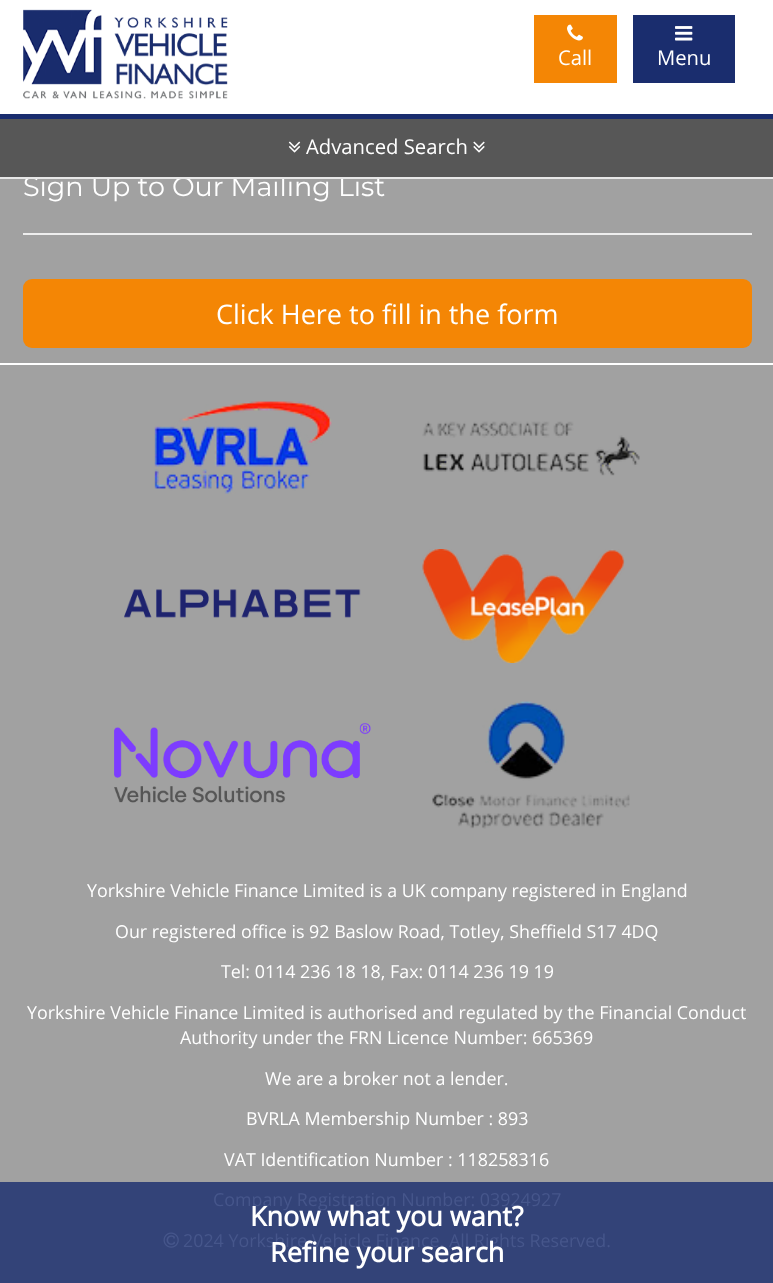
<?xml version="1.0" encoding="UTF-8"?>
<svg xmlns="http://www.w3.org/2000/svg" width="773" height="1283">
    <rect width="100%" height="100%" fill="#A1A1A1"/>
    <rect x="0" y="0" width="773" height="114" fill="#FFFFFF"/>
    <text x="23" y="196" font-family="Montserrat" font-size="27" fill="#FFFFFF">Sign Up to Our Mailing List</text>
    <rect x="0" y="177" width="773" height="2" fill="#E7E7E7"/>
    <rect x="0" y="114" width="773" height="5" fill="#192C6E"/>
    <image x="23" y="9" width="205" height="90" href="img_01.png"/>
    <rect x="534" y="15" width="83" height="68" fill="#F48605"/>
    <image x="567" y="24" width="16" height="17" href="img_02.png"/>
    <text x="558" y="65" font-family="Open Sans" font-size="20.25" fill="#FFFFFF">Call</text>
    <rect x="633" y="15" width="102" height="68" fill="#1A2D6E"/>
    <image x="675" y="26" width="18" height="15" href="img_03.png"/>
    <text x="657" y="65" font-family="Open Sans" font-size="20.25" fill="#FFFFFF">Menu</text>
    <rect x="0" y="119" width="773" height="58" fill="#575757"/>
    <image x="288" y="141" width="13" height="12" href="img_04.png"/>
    <text x="306" y="154" font-family="Open Sans" font-size="20.25" fill="#FFFFFF">Advanced Search</text>
    <image x="473" y="141" width="12" height="12" href="img_05.png"/>
    <rect x="0" y="1182" width="773" height="101" fill="#334378"/>
    <rect x="23" y="233" width="729" height="2" fill="#EEEEEE"/>
    <rect x="23" y="279" width="729" height="69" rx="9" fill="#F48605"/>
    <text x="216" y="324" font-family="Open Sans" font-size="27" fill="#FFFFFF">Click Here to fill in the form</text>
    <rect x="0" y="363" width="773" height="2" fill="#FFFFFF"/>
    <image x="154" y="401" width="178" height="93" href="img_06.png"/>
    <image x="422" y="421" width="218" height="55" href="img_07.png"/>
    <image x="124" y="589" width="237" height="29" href="img_08.png"/>
    <image x="422" y="549" width="203" height="114" href="img_09.png"/>
    <image x="114" y="723" width="257" height="80" href="img_10.png"/>
    <image x="432" y="701" width="198" height="128" href="img_11.png"/>
    <text x="87" y="897" font-family="Open Sans" font-size="17.85" fill="#FFFFFF">Yorkshire Vehicle Finance Limited is a UK company registered in England</text>
    <text x="115" y="938" font-family="Open Sans" font-size="17.85" fill="#FFFFFF">Our registered office is 92 Baslow Road, Totley, Sheffield S17 4DQ</text>
    <text x="221" y="978" font-family="Open Sans" font-size="17.85" fill="#FFFFFF">Tel: 0114 236 18 18, Fax: 0114 236 19 19</text>
    <text x="27" y="1019" font-family="Open Sans" font-size="17.85" fill="#FFFFFF">Yorkshire Vehicle Finance Limited is authorised and regulated by the Financial Conduct</text>
    <text x="180" y="1044" font-family="Open Sans" font-size="17.85" fill="#FFFFFF">Authority under the FRN Licence Number: 665369</text>
    <text x="265" y="1085" font-family="Open Sans" font-size="17.85" fill="#FFFFFF">We are a broker not a lender.</text>
    <text x="246" y="1125" font-family="Open Sans" font-size="17.85" fill="#FFFFFF">BVRLA Membership Number : 893</text>
    <text x="224" y="1166" font-family="Open Sans" font-size="17.85" fill="#FFFFFF">VAT Identification Number : 118258316</text>
    <text x="213" y="1206" font-family="Open Sans" font-size="17.85" fill="#46568B">Company Registration Number: 03924927</text>
    <image x="163" y="1232" width="16" height="16" href="img_12.png"/>
    <text x="183" y="1247" font-family="Open Sans" font-size="17.85" fill="#46568B">2024 Yorkshire Vehicle Finance. All Rights Reserved.</text>
    <text x="250" y="1226" font-family="Open Sans" font-size="27" font-weight="700" fill="#FFFFFF">Know what you want?</text>
    <text x="270" y="1262" font-family="Open Sans" font-size="27" font-weight="700" fill="#FFFFFF">Refine your search</text>
</svg>
